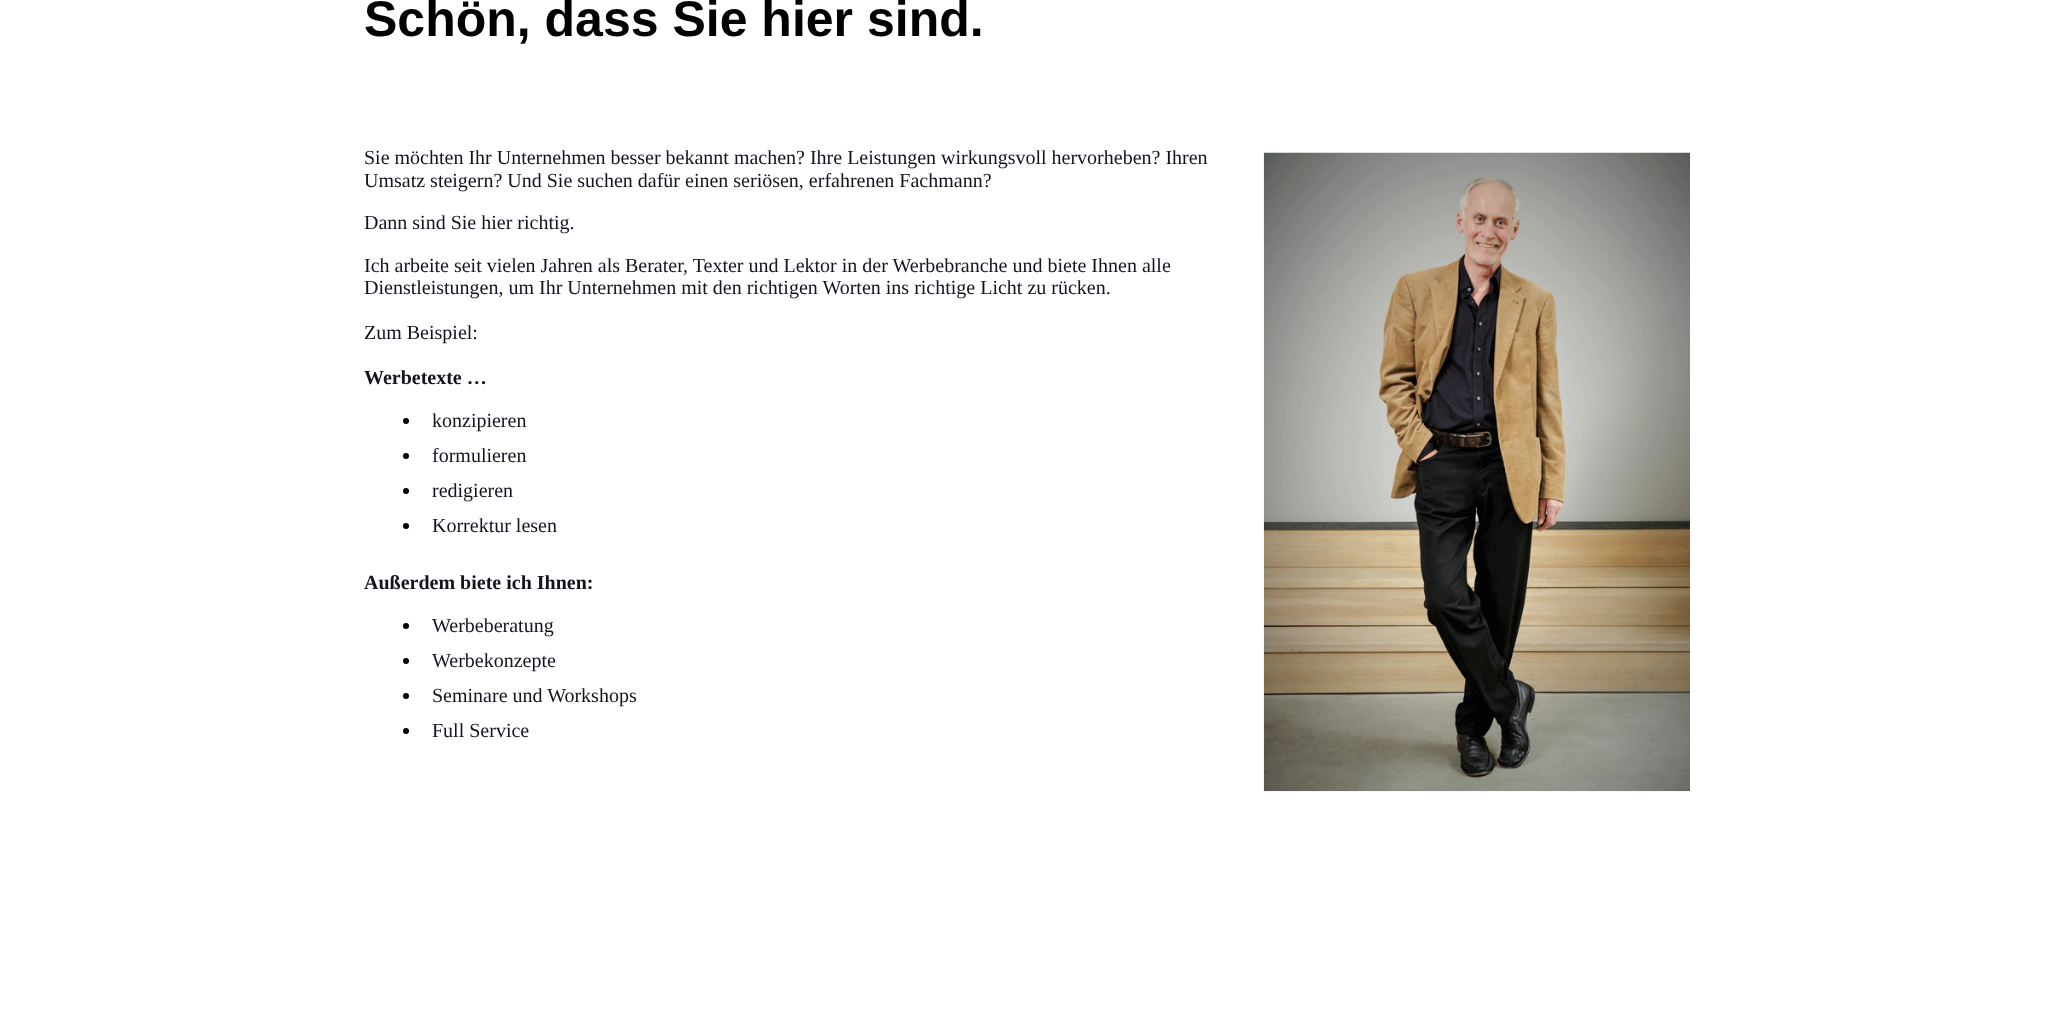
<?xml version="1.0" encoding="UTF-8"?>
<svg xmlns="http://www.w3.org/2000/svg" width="2053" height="1022">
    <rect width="100%" height="100%" fill="#FFFFFF"/>
    <text x="364" y="36" font-family="Liberation Sans" font-size="50" font-weight="700" fill="#000000">Schön, dass Sie hier sind.</text>
    <text font-family="Liberation Serif" font-size="20" fill="#131420">
        <tspan x="364" y="164">Sie möchten Ihr Unternehmen besser bekannt machen? Ihre Leistungen wirkungsvoll hervorheben? Ihren</tspan>
        <tspan x="364" y="187">Umsatz steigern? Und Sie suchen dafür einen seriösen, erfahrenen Fachmann?</tspan>
    </text>
    <text x="364" y="229" font-family="Liberation Serif" font-size="20" fill="#131420">Dann sind Sie hier richtig.</text>
    <text font-family="Liberation Serif" font-size="20" fill="#131420">
        <tspan x="364" y="272">Ich arbeite seit vielen Jahren als Berater, Texter und Lektor in der Werbebranche und biete Ihnen alle</tspan>
        <tspan x="364" y="294">Dienstleistungen, um Ihr Unternehmen mit den richtigen Worten ins richtige Licht zu rücken.</tspan>
    </text>
    <text x="364" y="339" font-family="Liberation Serif" font-size="20" fill="#131420">Zum Beispiel:</text>
    <text x="364" y="384" font-family="Liberation Serif" font-size="20" font-weight="700" fill="#131420">Werbetexte …</text>
    <circle cx="406" cy="421" r="3" fill="#000000"/>
    <text x="432" y="427" font-family="Liberation Serif" font-size="20" fill="#131420">konzipieren</text>
    <circle cx="406" cy="456" r="3" fill="#000000"/>
    <text x="432" y="462" font-family="Liberation Serif" font-size="20" fill="#131420">formulieren</text>
    <circle cx="406" cy="491" r="3" fill="#000000"/>
    <text x="432" y="497" font-family="Liberation Serif" font-size="20" fill="#131420">redigieren</text>
    <circle cx="406" cy="526" r="3" fill="#000000"/>
    <text x="432" y="532" font-family="Liberation Serif" font-size="20" fill="#131420">Korrektur lesen</text>
    <text x="364" y="589" font-family="Liberation Serif" font-size="20" font-weight="700" fill="#131420">Außerdem biete ich Ihnen:</text>
    <circle cx="406" cy="626" r="3" fill="#000000"/>
    <text x="432" y="632" font-family="Liberation Serif" font-size="20" fill="#131420">Werbeberatung</text>
    <circle cx="406" cy="661" r="3" fill="#000000"/>
    <text x="432" y="667" font-family="Liberation Serif" font-size="20" fill="#131420">Werbekonzepte</text>
    <circle cx="406" cy="696" r="3" fill="#000000"/>
    <text x="432" y="702" font-family="Liberation Serif" font-size="20" fill="#131420">Seminare und Workshops</text>
    <circle cx="406" cy="731" r="3" fill="#000000"/>
    <text x="432" y="737" font-family="Liberation Serif" font-size="20" fill="#131420">Full Service</text>
    <image x="1263" y="152" width="427" height="640" href="img_01.png"/>
</svg>
